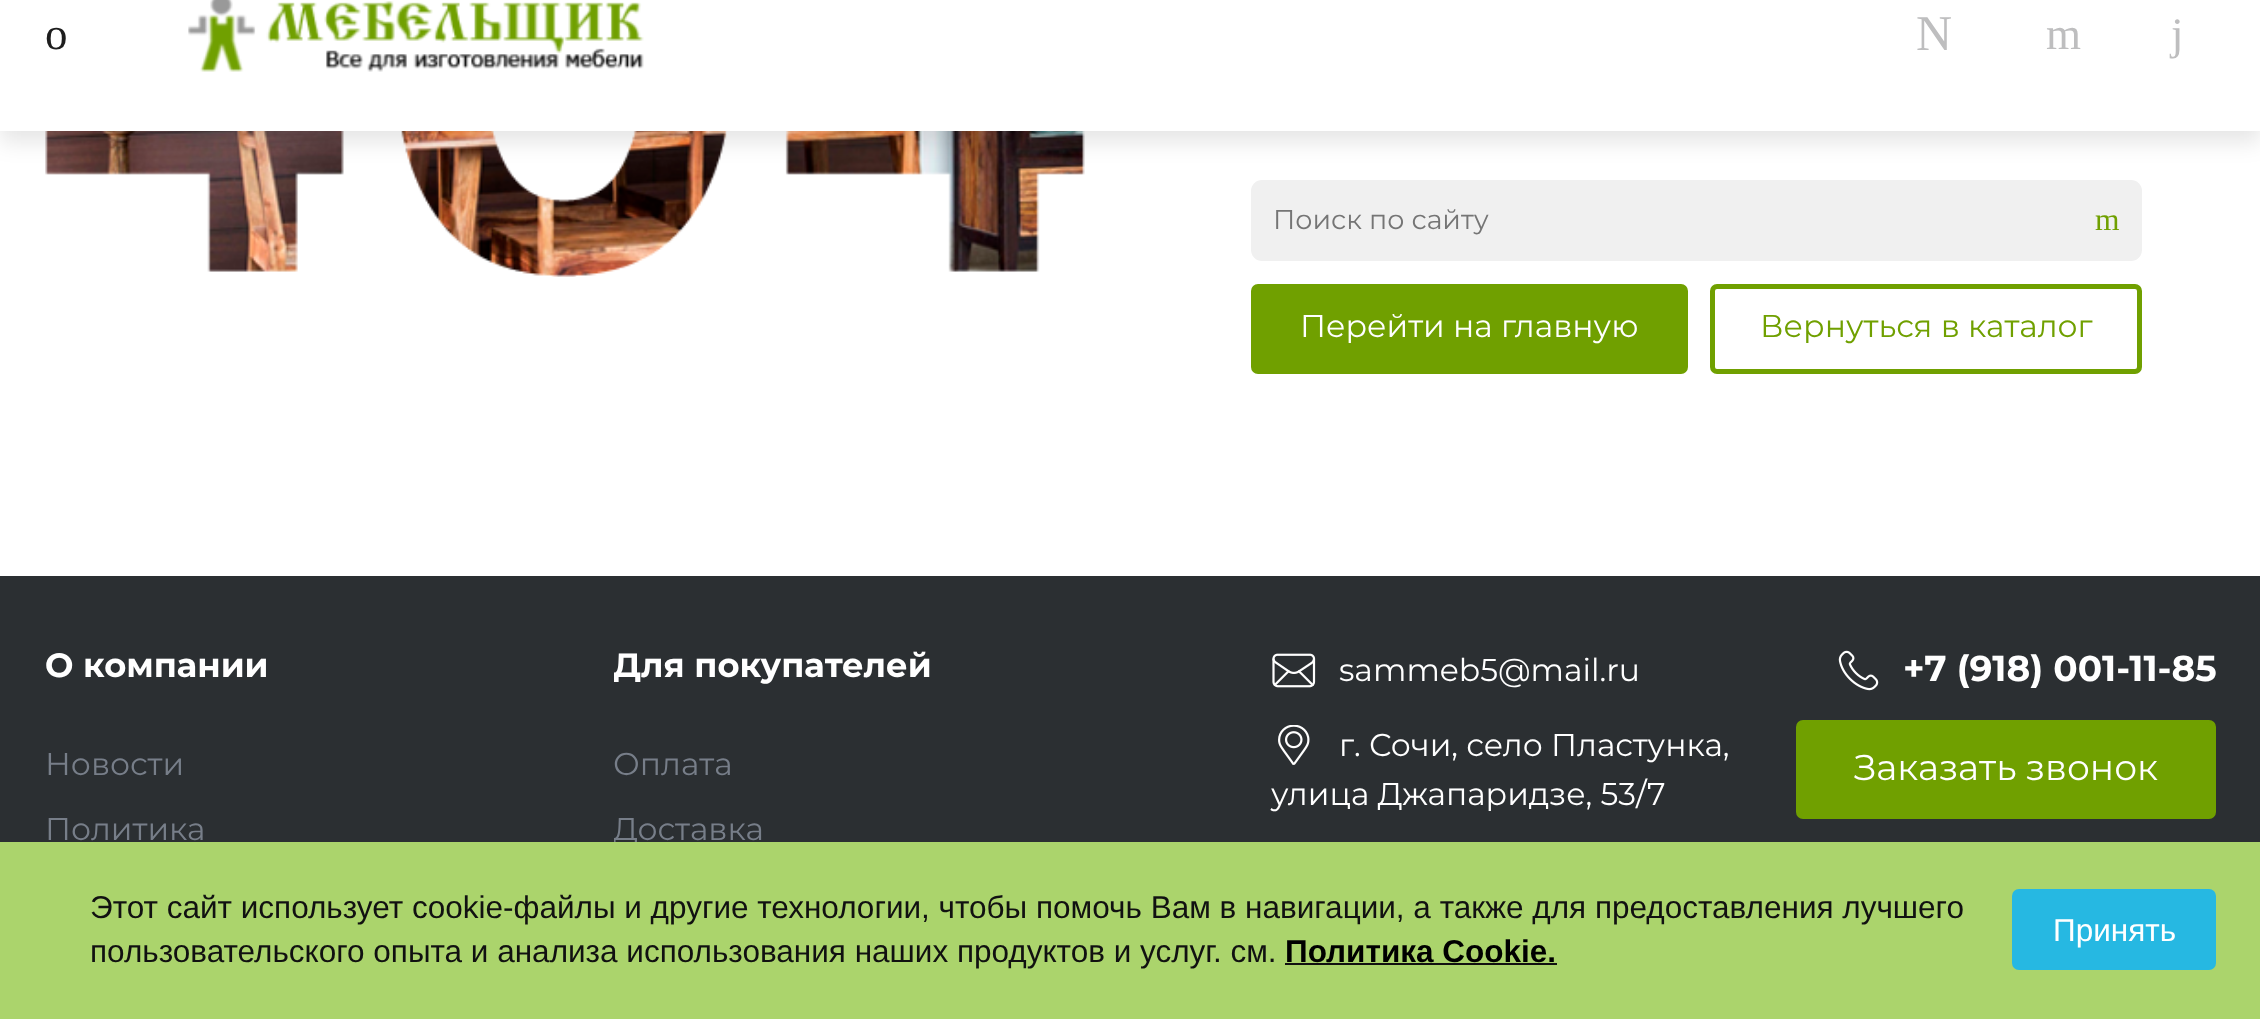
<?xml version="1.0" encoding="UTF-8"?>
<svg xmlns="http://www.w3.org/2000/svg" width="2260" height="1019">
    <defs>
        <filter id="blur1" x="-50%" y="-200%" width="200%" height="500%"><feGaussianBlur stdDeviation="11"/></filter>
        <clipPath id="clip1"><rect x="614" y="644" width="522" height="42"/></clipPath>
        <clipPath id="clip2"><rect x="614" y="677" width="522" height="315"/></clipPath>
    </defs>
    <rect width="100%" height="100%" fill="#FFFFFF"/>
    <image x="45" y="131" width="1040" height="146" href="img_02.png"/>
    <rect x="0" y="-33" width="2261" height="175" fill="#000000" fill-opacity="0.1" filter="url(#blur1)"/>
    <rect x="0" y="0" width="2260" height="131" fill="#FFFFFF"/>
    <text x="45" y="49" font-family="Liberation Serif" font-size="45" fill="#1D1D1D">o</text>
    <image x="188" y="0" width="456" height="72" href="img_01.png"/>
    <text x="1916" y="50" font-family="Liberation Serif" font-size="50" fill="#BEBEBF">N</text>
    <text x="2046" y="49" font-family="Liberation Serif" font-size="45" fill="#BEBEBF">m</text>
    <text x="2171" y="49" font-family="Liberation Serif" font-size="45" fill="#BEBEBF">j</text>
    <rect x="1251" y="180" width="891" height="81" rx="11" fill="#F0F0F0"/>
    <text x="1273" y="229" font-family="Montserrat" font-size="27" fill="#757575">Поиск по сайту</text>
    <text x="2095" y="230" font-family="Liberation Serif" font-size="31.5" fill="#70A000">m</text>
    <rect x="1253.5" y="286.5" width="432" height="85" rx="4.5" fill="#70A000" stroke="#70A000" stroke-width="5"/>
    <text x="1300" y="337" font-family="Montserrat" font-size="31.5" fill="#FFFFFF">Перейти на главную</text>
    <rect x="1712.5" y="286.5" width="427" height="85" rx="4.5" fill="none" stroke="#70A000" stroke-width="5"/>
    <text x="1760" y="337" font-family="Montserrat" font-size="31.5" fill="#70A000">Вернуться в каталог</text>
    <rect x="0" y="576" width="2260" height="266" fill="#2B2F32"/>
    <text x="45" y="677" font-family="Montserrat" font-size="33.75" font-weight="700" fill="#FFFFFF">О компании</text>
    <text x="45" y="775" font-family="Montserrat" font-size="31.5" fill="#777E89">Новости</text>
    <text x="45" y="840" font-family="Montserrat" font-size="31.5" fill="#777E89">Политика</text>
    <g clip-path="url(#clip1)">
        <text x="613" y="677" font-family="Montserrat" font-size="33.75" font-weight="700" fill="#FFFFFF">Для покупателей</text>
    </g>
    <text x="613" y="775" font-family="Montserrat" font-size="31.5" fill="#777E89">Оплата</text>
    <g clip-path="url(#clip2)">
        <text x="613" y="840" font-family="Montserrat" font-size="31.5" fill="#777E89">Доставка</text>
    </g>
    <image x="1272" y="653" width="44" height="35" href="img_03.png"/>
    <text x="1339" y="681" font-family="Montserrat" font-size="31.5" fill="#FFFFFF">sammeb5@mail.ru</text>
    <image x="1838" y="650" width="41" height="41" href="img_04.png"/>
    <text x="1903" y="681" font-family="Montserrat" font-size="36" font-weight="700" fill="#FFFFFF">+7 (918) 001-11-85</text>
    <image x="1278" y="725" width="32" height="40" href="img_05.png"/>
    <text x="1339" y="756" font-family="Montserrat" font-size="31.5" fill="#FFFFFF">г. Сочи, село Пластунка,</text>
    <text x="1271" y="805" font-family="Montserrat" font-size="31.5" fill="#FFFFFF">улица Джапаридзе, 53/7</text>
    <rect x="1798.5" y="722.5" width="415" height="94" rx="4.5" fill="#70A000" stroke="#70A000" stroke-width="5"/>
    <text x="1854" y="780" font-family="Montserrat" font-size="36" fill="#FFFFFF">Заказать звонок</text>
    <rect x="0" y="842" width="2260" height="177" fill="#ABD46C"/>
    <text font-family="Liberation Sans" font-size="31.5" fill="#111111">
        <tspan x="90" y="918">Этот сайт использует cookie-файлы и другие технологии, чтобы помочь Вам в навигации, а также для предоставления лучшего</tspan>
        <tspan x="90" y="962">пользовательского опыта и анализа использования наших продуктов и услуг. см.</tspan>
    </text>
    <text x="1285" y="962" font-family="Liberation Sans" font-size="31.5" font-weight="700" fill="#000000">Политика Cookie.</text>
    <rect x="1285" y="963" width="272" height="2" fill="#111111"/>
    <rect x="2014.5" y="891.5" width="199" height="76" rx="4.5" fill="#26B8E2" stroke="#26B8E2" stroke-width="5"/>
    <text x="2053" y="941" font-family="Liberation Sans" font-size="31.5" fill="#FFFFFF">Принять</text>
</svg>
